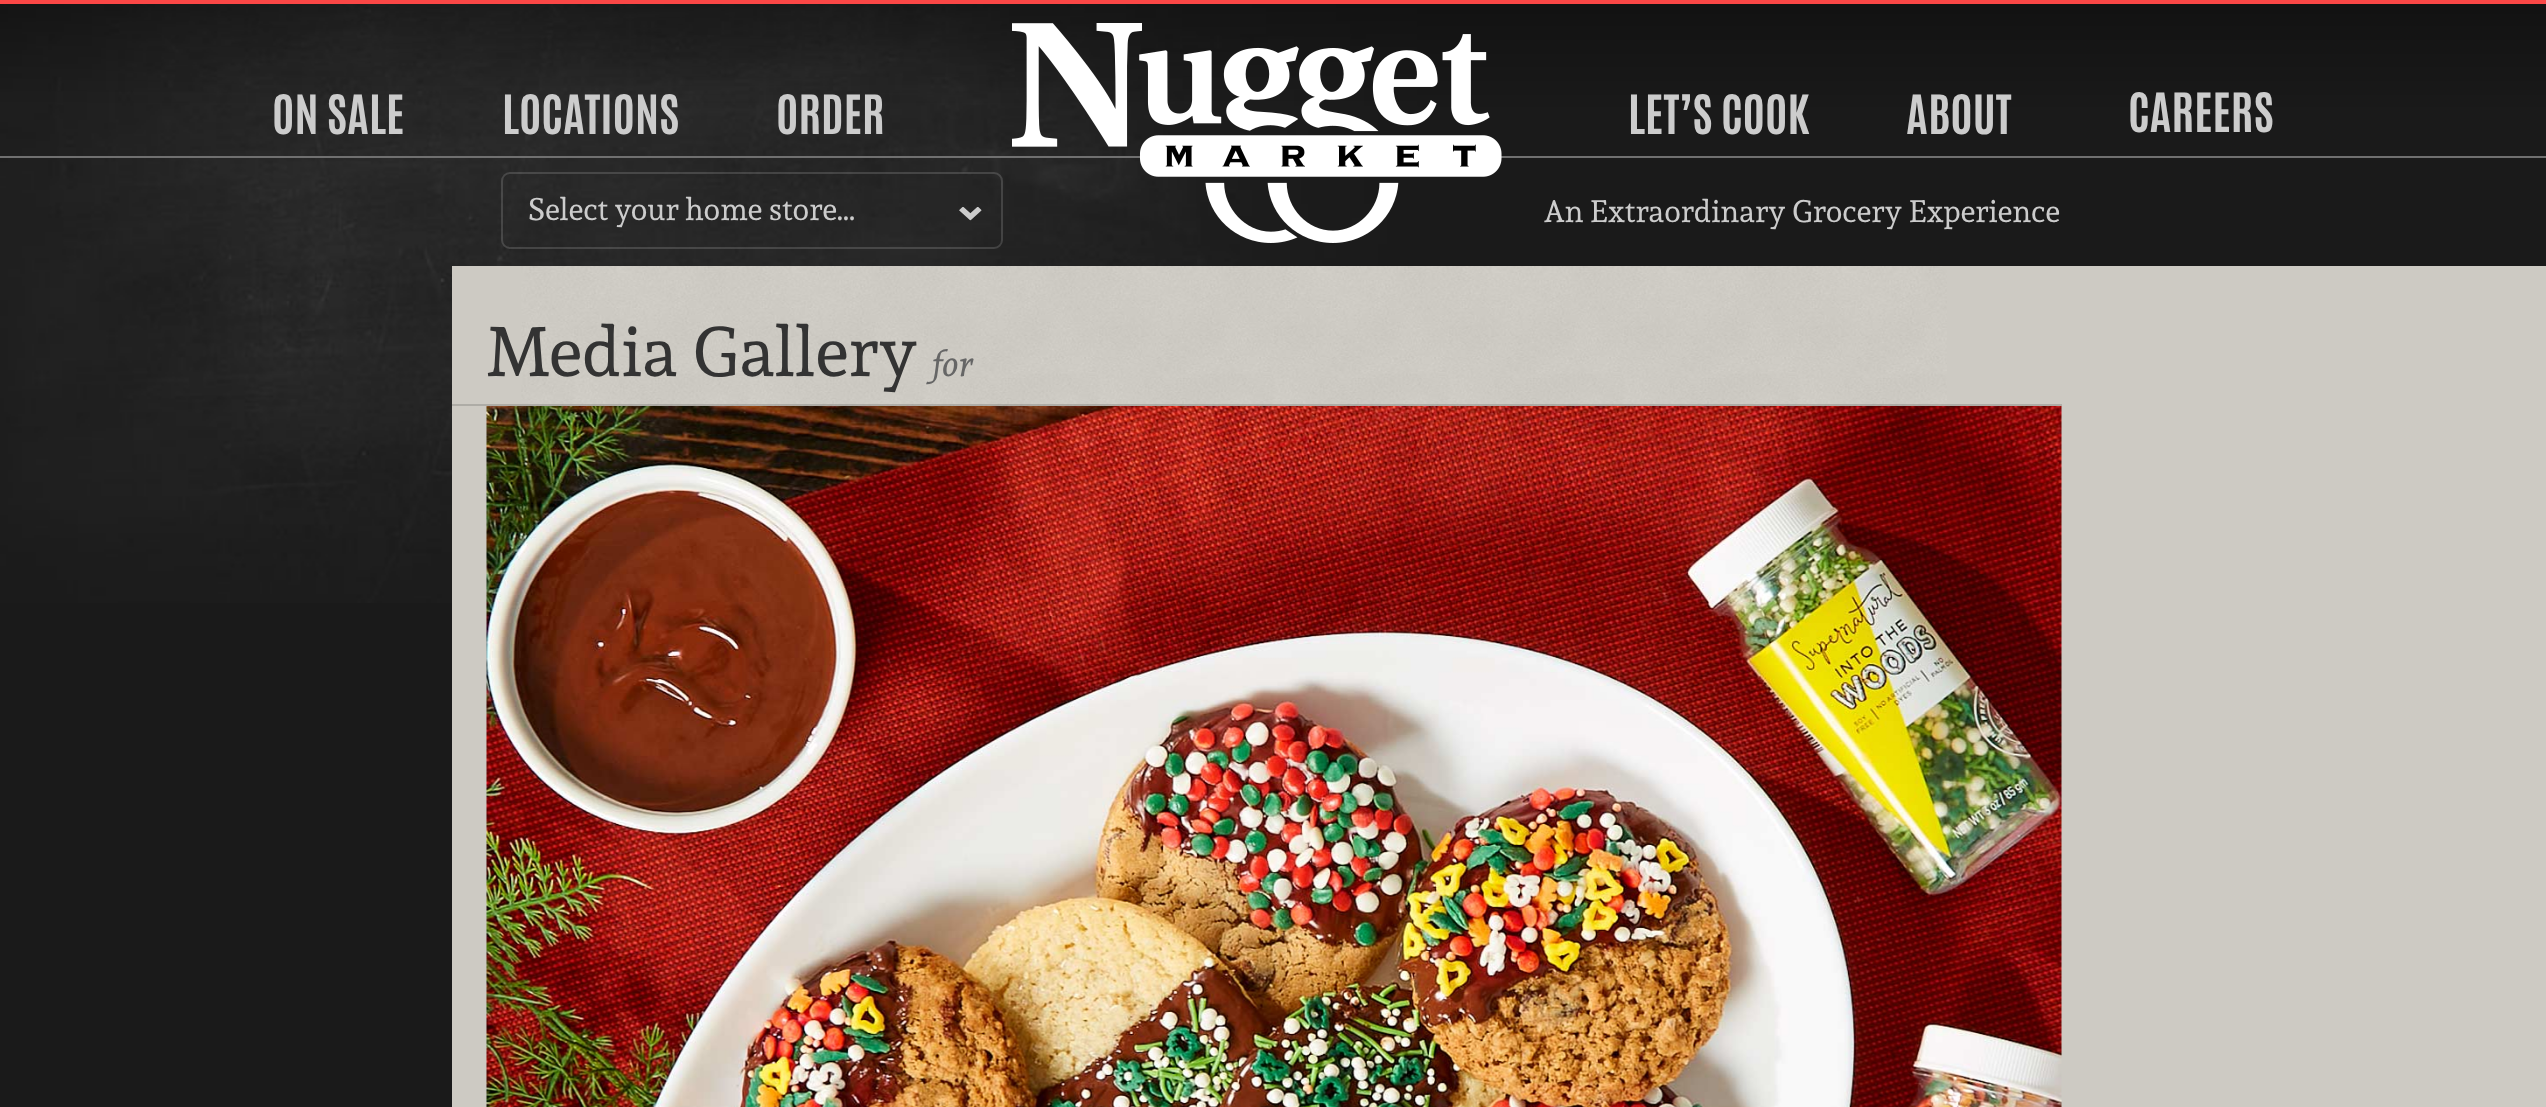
<?xml version="1.0" encoding="UTF-8"?>
<svg xmlns="http://www.w3.org/2000/svg" width="2546" height="1107">
    <rect width="100%" height="100%" fill="#1A1A1A"/>
    <image x="0" y="4" width="2546" height="599" href="img_01.png"/>
    <rect x="0" y="0" width="2546" height="4" fill="#FB4746"/>
    <rect x="0" y="156" width="2546" height="2" fill="#707070"/>
    <text x="272" y="134" font-family="Antonio" font-size="46" font-weight="700" fill="#CCCCCC">ON SALE</text>
    <text x="502" y="134" font-family="Antonio" font-size="46" font-weight="700" fill="#CCCCCC">LOCATIONS</text>
    <text x="776" y="134" font-family="Antonio" font-size="46" font-weight="700" fill="#CCCCCC">ORDER</text>
    <image x="1012" y="23" width="490" height="220" href="img_02.png"/>
    <text x="1628" y="134" font-family="Antonio" font-size="46" font-weight="700" fill="#CCCCCC">LET’S COOK</text>
    <text x="1906" y="134" font-family="Antonio" font-size="46" font-weight="700" fill="#CCCCCC">ABOUT</text>
    <text x="2128" y="132" font-family="Antonio" font-size="46" font-weight="700" fill="#CCCCCC">CAREERS</text>
    <rect x="502" y="173" width="500" height="75" rx="8" fill="none" stroke="#FFFFFF" stroke-opacity="0.15" stroke-width="2"/>
    <text x="528" y="220" font-family="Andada" font-size="30.75" fill="#CCCCCC">Select your home store…</text>
    <image x="959" y="207" width="23" height="14" href="img_03.png"/>
    <text x="1544" y="222" font-family="Andada" font-size="30.75" fill="#CCCCCC">An Extraordinary Grocery Experience</text>
    <rect x="452" y="266" width="2094" height="841" fill="#CDCAC3"/>
    <image x="521" y="266" width="1426" height="140" href="img_04.png"/>
    <rect x="452" y="404" width="1610" height="2" fill="#000000" fill-opacity="0.15"/>
    <text x="486" y="376" font-family="Andada" font-size="69.25" fill="#333333">Media Gallery</text>
    <text x="932" y="376" font-family="Andada" font-size="35" font-style="italic" fill="#666666">for</text>
    <image x="486" y="406" width="1576" height="701" href="img_05.png"/>
</svg>
